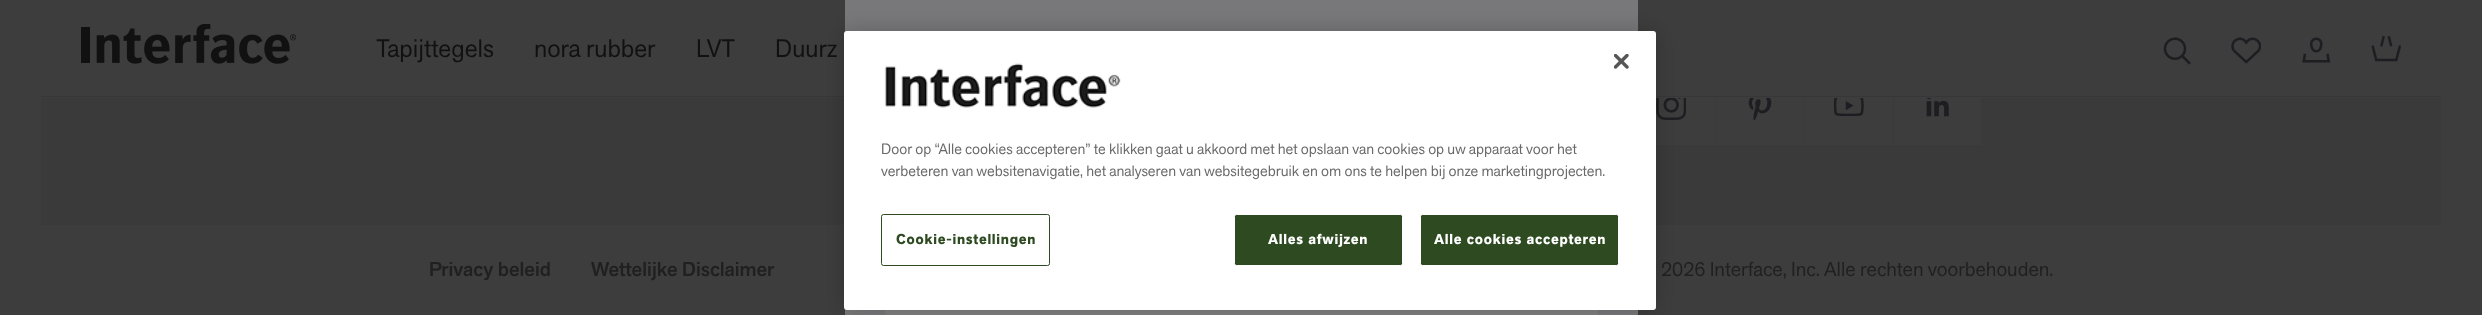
<?xml version="1.0" encoding="UTF-8"?>
<svg xmlns="http://www.w3.org/2000/svg" width="2482" height="315">
    <defs>
        <filter id="blur1" x="-50%" y="-200%" width="200%" height="500%"><feGaussianBlur stdDeviation="11"/></filter>
    </defs>
    <rect width="100%" height="100%" fill="#3D3D3D"/>
    <rect x="41" y="98" width="2400" height="127" fill="#3A3A3B"/>
    <rect x="41" y="96" width="2400" height="1" fill="#373738"/>
    <image x="81" y="24" width="215" height="40" href="img_01.png"/>
    <text x="376" y="57" font-family="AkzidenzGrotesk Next" font-size="25" fill="#111111">Tapijttegels</text>
    <text x="534" y="57" font-family="AkzidenzGrotesk Next" font-size="25" fill="#111111">nora rubber</text>
    <text x="696" y="57" font-family="AkzidenzGrotesk Next" font-size="25" fill="#111111">LVT</text>
    <text x="775" y="57" font-family="AkzidenzGrotesk Next" font-size="25" fill="#111111">Duurz</text>
    <image x="2163" y="37" width="28" height="28" href="img_02.png"/>
    <image x="2231" y="37" width="30" height="27" href="img_03.png"/>
    <image x="2302" y="37" width="29" height="26" href="img_04.png"/>
    <image x="2371" y="36" width="30" height="26" href="img_05.png"/>
    <rect x="845" y="0" width="793" height="315" fill="#787779"/>
    <rect x="885" y="310" width="713" height="5" fill="#808080"/>
    <rect x="1656" y="98" width="59" height="47" fill="#3D3D3D"/>
    <image x="1656" y="98" width="30" height="22" href="img_06.png"/>
    <rect x="1716" y="98" width="88" height="47" fill="#3D3D3D"/>
    <image x="1748" y="98" width="24" height="22" href="img_07.png"/>
    <rect x="1805" y="98" width="88" height="47" fill="#3D3D3D"/>
    <image x="1834" y="98" width="30" height="18" href="img_08.png"/>
    <rect x="1894" y="98" width="87" height="47" fill="#3D3D3D"/>
    <image x="1926" y="98" width="23" height="19" href="img_09.png"/>
    <text x="429" y="276" font-family="AkzidenzGrotesk Next" font-size="20" font-weight="500" fill="#202021">Privacy beleid</text>
    <text x="591" y="276" font-family="AkzidenzGrotesk Next" font-size="20" font-weight="500" fill="#202021">Wettelijke Disclaimer</text>
    <text x="1661" y="276" font-family="AkzidenzGrotesk Next" font-size="20" fill="#202021">2026 Interface, Inc. Alle rechten voorbehouden.</text>
    <rect x="844" y="31" width="812" height="279" rx="3" fill="#000000" fill-opacity="0.2" filter="url(#blur1)"/>
    <rect x="844" y="31" width="812" height="279" rx="3" fill="#FFFFFF"/>
    <image x="1614" y="54" width="15" height="15" href="img_10.png"/>
    <image x="884" y="63" width="237" height="45" href="img_11.png"/>
    <text font-family="AkzidenzGrotesk Next" font-size="14.9" fill="#696969">
        <tspan x="881" y="154">Door op “Alle cookies accepteren” te klikken gaat u akkoord met het opslaan van cookies op uw apparaat voor het</tspan>
        <tspan x="881" y="176">verbeteren van websitenavigatie, het analyseren van websitegebruik en om ons te helpen bij onze marketingprojecten.</tspan>
    </text>
    <rect x="881.5" y="214.5" width="168" height="51" rx="2" fill="none" stroke="#2E4A21"/>
    <text x="896" y="244" font-family="AkzidenzGrotesk Next" font-size="14.25" font-weight="700" letter-spacing="0.75" fill="#2E4A21">Cookie-instellingen</text>
    <rect x="1234.5" y="214.5" width="168" height="51" rx="2" fill="#2E4A21" stroke="#FFFFFF"/>
    <text x="1268" y="244" font-family="AkzidenzGrotesk Next" font-size="14.25" font-weight="700" letter-spacing="0.75" fill="#FFFFFF">Alles afwijzen</text>
    <rect x="1420.5" y="214.5" width="198" height="51" rx="2" fill="#2E4A21" stroke="#FFFFFF"/>
    <text x="1434" y="244" font-family="AkzidenzGrotesk Next" font-size="14.25" font-weight="700" letter-spacing="0.75" fill="#FFFFFF">Alle cookies accepteren</text>
</svg>
